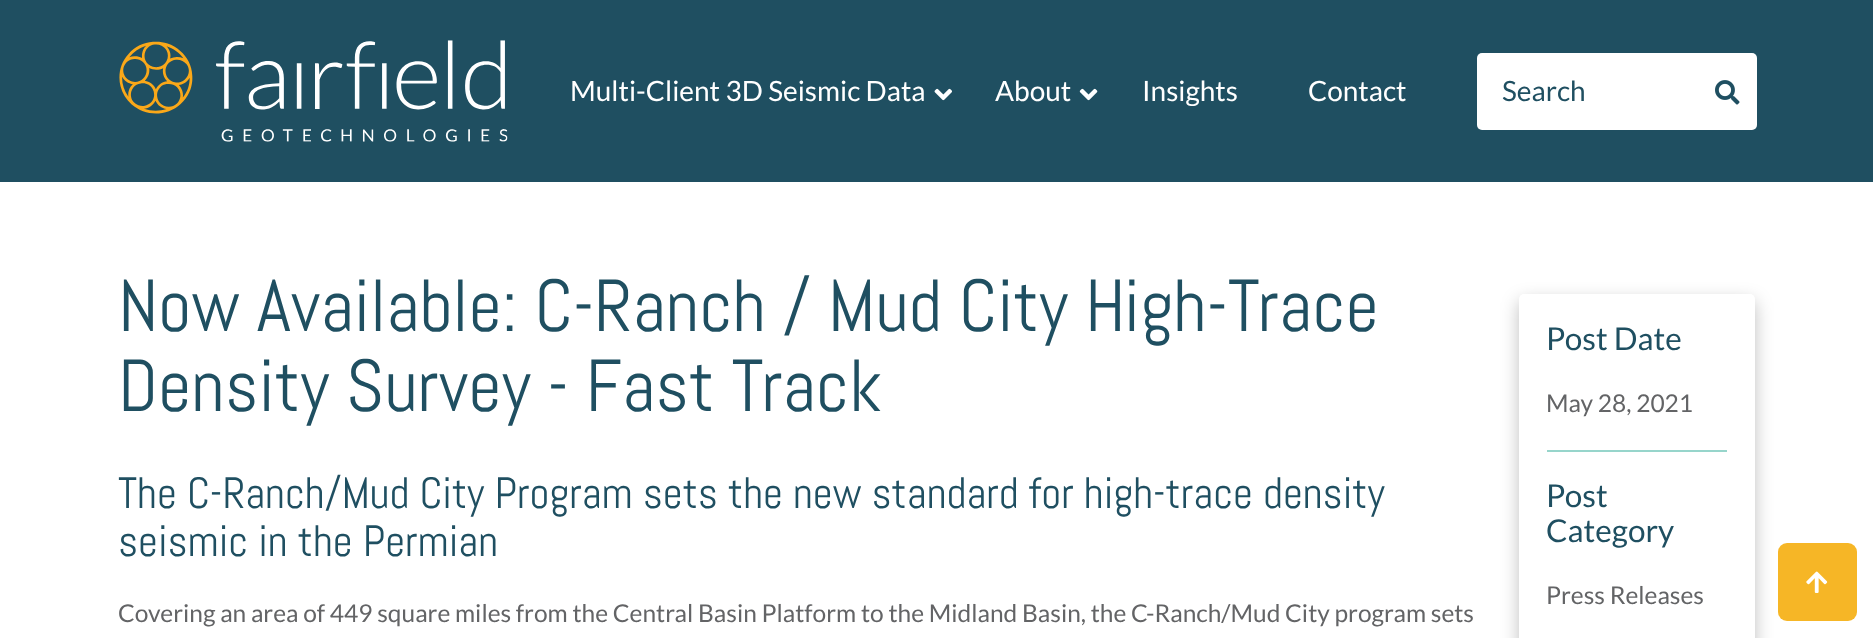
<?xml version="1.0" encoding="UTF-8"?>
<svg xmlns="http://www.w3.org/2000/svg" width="1873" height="638">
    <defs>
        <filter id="blur1" x="-50%" y="-200%" width="200%" height="500%"><feGaussianBlur stdDeviation="9"/></filter>
    </defs>
    <rect width="100%" height="100%" fill="#FFFFFF"/>
    <rect x="0" y="0" width="1873" height="182" fill="#1F4F61"/>
    <image x="119" y="40" width="389" height="102" href="img_01.png"/>
    <text x="570" y="101" font-family="Lato" font-size="28" fill="#FFFFFF">Multi-Client 3D Seismic Data</text>
    <image x="934" y="88" width="18" height="13" href="img_02.png"/>
    <text x="995" y="101" font-family="Lato" font-size="28" fill="#FFFFFF">About</text>
    <image x="1079" y="88" width="19" height="13" href="img_03.png"/>
    <text x="1142" y="101" font-family="Lato" font-size="28" fill="#FFFFFF">Insights</text>
    <text x="1308" y="101" font-family="Lato" font-size="28" fill="#FFFFFF">Contact</text>
    <rect x="1477" y="53" width="280" height="77" rx="5" fill="#FFFFFF"/>
    <text x="1502" y="101" font-family="Lato" font-size="28" fill="#1F4F61">Search</text>
    <image x="1715" y="80" width="25" height="25" href="img_04.png"/>
    <text font-family="Abel" font-size="73.5" fill="#1F4F61">
        <tspan x="118" y="331">Now Available: C-Ranch / Mud City High-Trace</tspan>
        <tspan x="118" y="411">Density Survey - Fast Track</tspan>
    </text>
    <text font-family="Abel" font-size="43.75" fill="#1F4F61">
        <tspan x="118" y="508">The C-Ranch/Mud City Program sets the new standard for high-trace density</tspan>
        <tspan x="118" y="556">seismic in the Permian</tspan>
    </text>
    <text x="118" y="622" font-family="Lato" font-size="24.5" fill="#636466">Covering an area of 449 square miles from the Central Basin Platform to the Midland Basin, the C-Ranch/Mud City program sets</text>
    <rect x="1519" y="301" width="236" height="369" rx="5" fill="#000000" fill-opacity="0.25" filter="url(#blur1)"/>
    <rect x="1519" y="294" width="236" height="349" rx="5" fill="#FFFFFF"/>
    <text x="1546" y="350" font-family="Lato" font-size="31.5" fill="#1F4F61">Post Date</text>
    <text x="1546" y="412" font-family="Lato" font-size="24.5" fill="#636466">May 28, 2021</text>
    <rect x="1547" y="450" width="180" height="2" fill="#97D5CB"/>
    <text font-family="Lato" font-size="31.5" fill="#1F4F61">
        <tspan x="1546" y="507">Post</tspan>
        <tspan x="1546" y="542">Category</tspan>
    </text>
    <text x="1546" y="604" font-family="Lato" font-size="24.5" fill="#636466">Press Releases</text>
    <rect x="1778" y="543" width="79" height="78" rx="9" fill="#F6B626"/>
    <image x="1806" y="571" width="22" height="22" href="img_05.png"/>
</svg>
